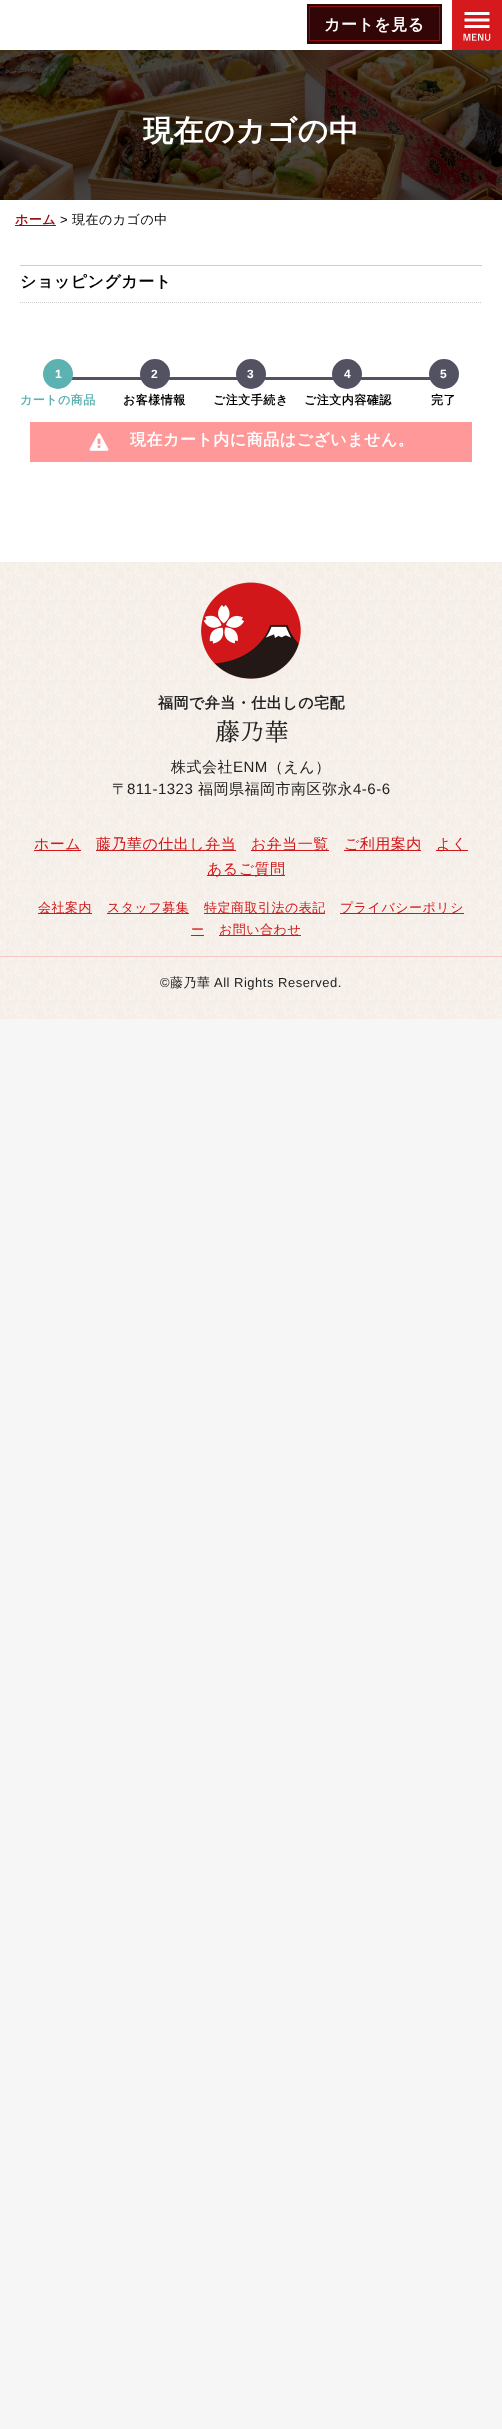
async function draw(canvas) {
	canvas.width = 502;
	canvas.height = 2429;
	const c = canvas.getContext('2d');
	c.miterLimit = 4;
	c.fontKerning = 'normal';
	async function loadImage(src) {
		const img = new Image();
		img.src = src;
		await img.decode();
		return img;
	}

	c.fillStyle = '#f6f6f6';
	c.fillRect(0, 0, 502, 2429);
	c.fillStyle = '#fff';
	c.fillRect(0, 0, 502, 562);
	c.fillStyle = '#320506';
	c.fillRect(307, 4, 135, 40);
	c.strokeStyle = '#8a0f11';
	c.strokeRect(309.5, 6.5, 130, 34);
	c.letterSpacing = '0.5px';
	c.font = 'bold 16px WenQuanYi Zen Hei';
	c.fillStyle = '#fff';
	c.fillText('カートを見る', 324, 30);
	c.fillStyle = '#d5191c';
	c.fillRect(452, 0, 50, 50);
	c.drawImage(await loadImage('img1.png'), 463, 12, 28, 29);
	c.drawImage(await loadImage('img2.png'), 0, 50, 502, 150);
	c.font = 'bold 30px WenQuanYi Zen Hei';
	c.fillStyle = '#fff';
	c.fillText('現在のカゴの中', 143, 141);
	c.fillStyle = '#991113';
	c.fillRect(15, 225, 41, 1);
	c.font = 'bold 13px WenQuanYi Zen Hei';
	c.fillText('ホーム', 15, 224);
	c.font = '13px Liberation Sans';
	c.fillStyle = '#000';
	c.fillText('>', 60, 224);
	c.font = '500 13px WenQuanYi Zen Hei';
	c.fillText('現在のカゴの中', 72, 224);
	c.fillStyle = '#ccc';
	c.fillRect(20, 265, 462, 1);
	c.beginPath();
	c.moveTo(20, 302.5);
	c.lineTo(482, 302.5);
	c.strokeStyle = '#ccc';
	c.setLineDash([1, 1]);
	c.stroke();
	c.font = 'bold 16px WenQuanYi Zen Hei';
	c.fillStyle = '#000';
	c.fillText('ショッピングカート', 20, 287);
	c.fillStyle = '#525263';
	c.fillRect(71, 377, 71, 3);
	c.fillStyle = '#5cb1b1';
	c.beginPath();
	c.arc(58, 374, 15, 0, 2 * Math.PI);
	c.fill();
	c.font = 'bold 12px Liberation Sans';
	c.fillStyle = '#fff';
	c.fillText('1', 55, 378);
	c.font = 'bold 12px WenQuanYi Zen Hei';
	c.fillStyle = '#5cb1b1';
	c.fillText('カートの商品', 20, 404);
	c.fillStyle = '#525263';
	c.fillRect(168, 377, 70, 3);
	c.beginPath();
	c.arc(155, 374, 15, 0, 2 * Math.PI);
	c.fill();
	c.font = 'bold 12px Liberation Sans';
	c.fillStyle = '#fff';
	c.fillText('2', 151, 378);
	c.font = 'bold 12px WenQuanYi Zen Hei';
	c.fillStyle = '#000';
	c.fillText('お客様情報', 123, 404);
	c.fillStyle = '#525263';
	c.fillRect(264, 377, 70, 3);
	c.beginPath();
	c.arc(251, 374, 15, 0, 2 * Math.PI);
	c.fill();
	c.font = 'bold 12px Liberation Sans';
	c.fillStyle = '#fff';
	c.fillText('3', 247, 378);
	c.font = 'bold 12px WenQuanYi Zen Hei';
	c.fillStyle = '#000';
	c.fillText('ご注文手続き', 213, 404);
	c.fillStyle = '#525263';
	c.fillRect(360, 377, 71, 3);
	c.beginPath();
	c.arc(347, 374, 15, 0, 2 * Math.PI);
	c.fill();
	c.font = 'bold 12px Liberation Sans';
	c.fillStyle = '#fff';
	c.fillText('4', 344, 378);
	c.font = 'bold 12px WenQuanYi Zen Hei';
	c.fillStyle = '#000';
	c.fillText('ご注文内容確認', 304, 404);
	c.fillStyle = '#525263';
	c.beginPath();
	c.arc(444, 374, 15, 0, 2 * Math.PI);
	c.fill();
	c.font = 'bold 12px Liberation Sans';
	c.fillStyle = '#fff';
	c.fillText('5', 440, 378);
	c.font = 'bold 12px WenQuanYi Zen Hei';
	c.fillStyle = '#000';
	c.fillText('完了', 431, 404);
	c.fillStyle = '#f99';
	c.fillRect(30, 422, 442, 40);
	c.drawImage(await loadImage('img3.png'), 89, 433, 20, 18);
	c.font = 'bold 16px WenQuanYi Zen Hei';
	c.fillStyle = '#fff';
	c.fillText('現在カート内に商品はございません。', 130, 445);
	c.drawImage(await loadImage('img4.png'), 0, 562, 502, 457);
	c.fillStyle = '#f9c7c8';
	c.fillRect(0, 956, 502, 1);
	c.drawImage(await loadImage('img5.png'), 201, 582, 100, 97);
	c.font = 'bold 15px WenQuanYi Zen Hei';
	c.fillStyle = '#222';
	c.fillText('福岡で弁当・仕出しの宅配', 158, 708);
	c.drawImage(await loadImage('img6.png'), 215, 720, 73, 23);
	c.font = '500 15px WenQuanYi Zen Hei';
	c.fillText('株式会社', 171, 772);
	c.font = '15px Liberation Sans';
	c.fillText('ENM', 233, 772);
	c.font = '500 15px WenQuanYi Zen Hei';
	c.fillText('（えん）', 268, 772);
	c.fillText('〒', 112, 794);
	c.font = '15px Liberation Sans';
	c.fillText('811-1323', 127, 794);
	c.font = '500 15px WenQuanYi Zen Hei';
	c.fillText('福岡県福岡市南区弥永', 198, 794);
	c.font = '15px Liberation Sans';
	c.fillText('4-6-6', 353, 794);
	c.fillStyle = '#d11719';
	c.fillRect(34, 850, 47, 1);
	c.font = '500 15px WenQuanYi Zen Hei';
	c.fillText('ホーム', 34, 849);
	c.fillRect(96, 850, 140, 1);
	c.fillText('藤乃華の仕出し弁当', 96, 849);
	c.fillRect(251, 850, 78, 1);
	c.fillText('お弁当一覧', 251, 849);
	c.fillRect(344, 850, 77, 1);
	c.fillText('ご利用案内', 344, 849);
	c.fillRect(436, 850, 32, 1);
	c.fillText('よく', 436, 849);
	c.fillRect(207, 875, 78, 1);
	c.fillText('あるご質問', 207, 874);
	c.fillRect(38, 913, 54, 1);
	c.font = '500 13px WenQuanYi Zen Hei';
	c.fillText('会社案内', 38, 912);
	c.fillRect(107, 913, 82, 1);
	c.fillText('スタッフ募集', 107, 912);
	c.fillRect(204, 913, 121, 1);
	c.fillText('特定商取引法の表記', 204, 912);
	c.fillRect(340, 913, 124, 1);
	c.fillText('プライバシーポリシ', 340, 912);
	c.fillText('ー', 191, 934);
	c.fillRect(191, 935, 13, 1);
	c.fillRect(219, 935, 82, 1);
	c.fillText('お問い合わせ', 219, 934);
	c.font = '13px Liberation Sans';
	c.fillStyle = '#222';
	c.fillText('©', 160, 987);
	c.font = '500 13px WenQuanYi Zen Hei';
	c.fillText('藤乃華', 170, 987);
	c.font = '13px Liberation Sans';
	c.fillText('All Rights Reserved.', 214, 987);
}

draw(document.querySelector('canvas'));
